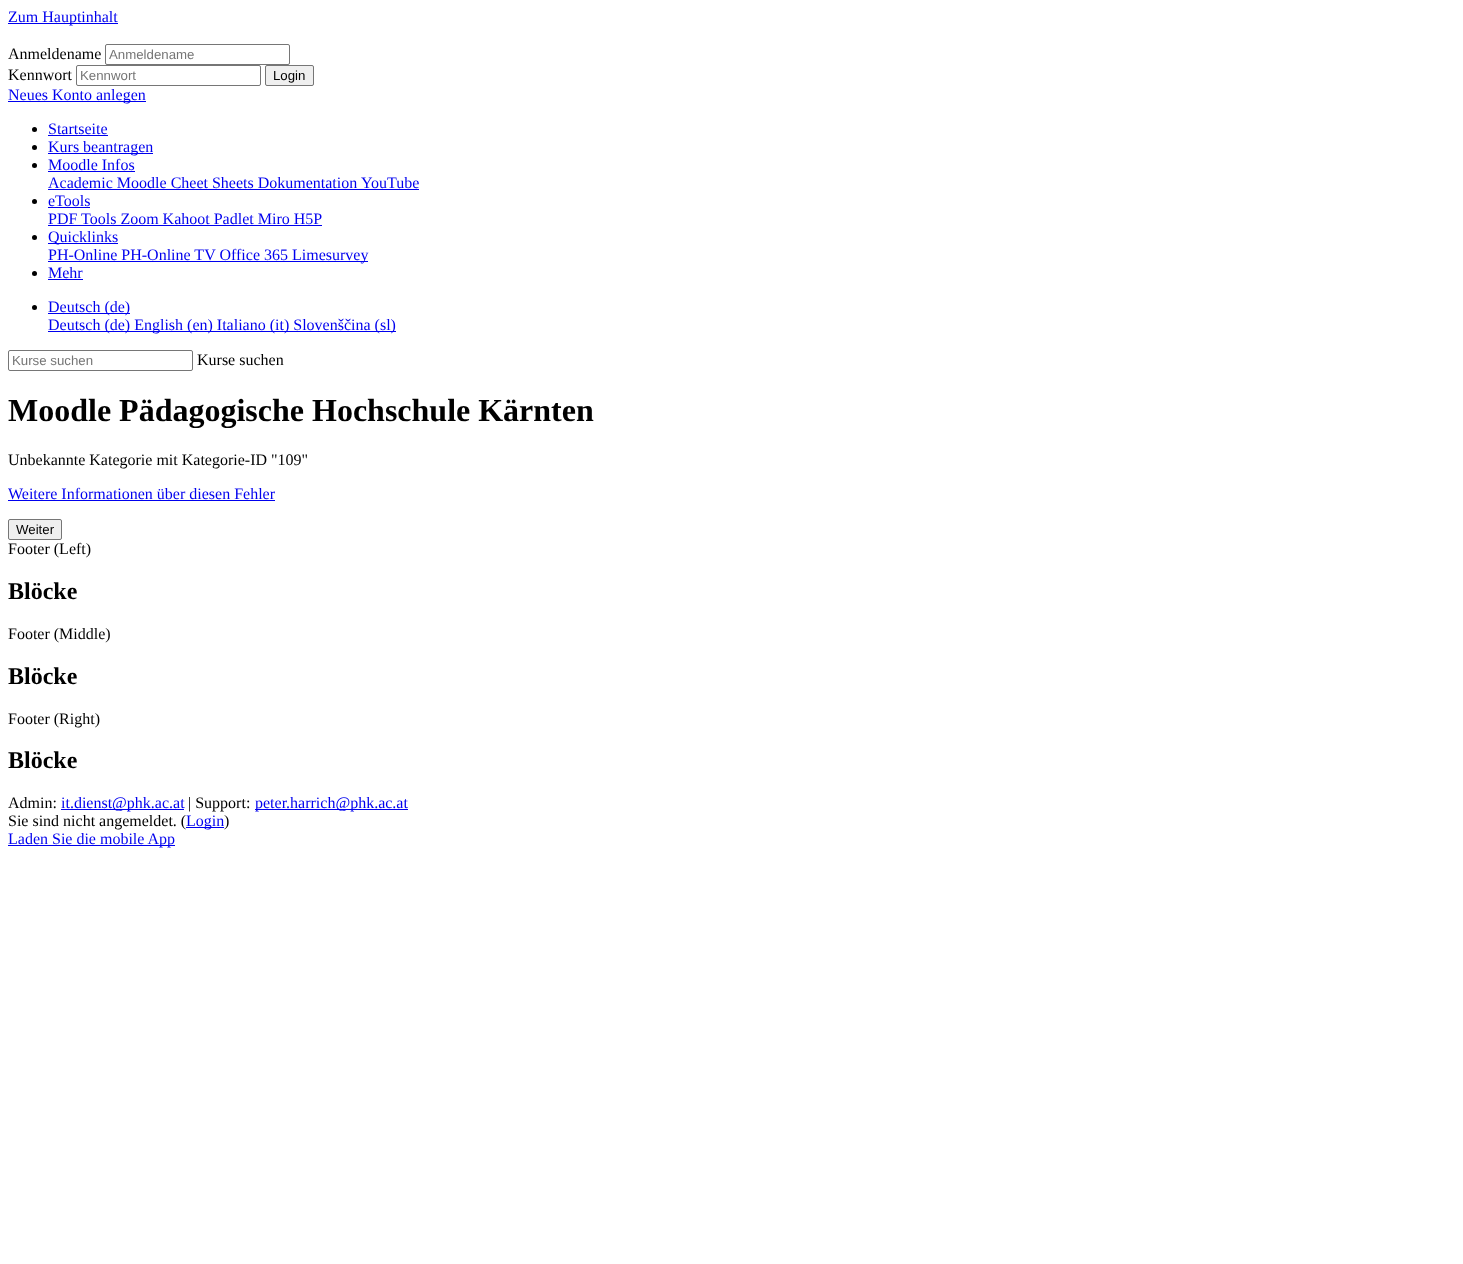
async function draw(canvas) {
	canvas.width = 1463;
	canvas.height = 1264;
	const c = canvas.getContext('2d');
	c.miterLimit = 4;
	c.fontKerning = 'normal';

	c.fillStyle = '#fff';
	c.fillRect(0, 0, 1463, 1264);
	c.fillStyle = '#00e';
	c.fillRect(8, 23, 110, 1);
	c.font = '16px Liberation Serif';
	c.fillText('Zum Hauptinhalt', 8, 22);
	c.fillStyle = '#000';
	c.fillText('Anmeldename', 8, 59);
	c.beginPath();
	c.roundRect(105.5, 44.5, 184, 20, 1.5);
	c.strokeStyle = '#767676';
	c.stroke();
	c.font = '13.25px Liberation Sans';
	c.fillStyle = '#757575';
	c.fillText('Anmeldename', 109, 59);
	c.font = '16px Liberation Serif';
	c.fillStyle = '#000';
	c.fillText('Kennwort', 8, 80);
	c.beginPath();
	c.roundRect(76.5, 65.5, 184, 20, 1.5);
	c.stroke();
	c.font = '13.25px Liberation Sans';
	c.fillStyle = '#757575';
	c.fillText('Kennwort', 80, 80);
	c.fillStyle = '#efefef';
	c.beginPath();
	c.roundRect(265.5, 65.5, 48, 20, 1.5);
	c.fill();
	c.stroke();
	c.fillStyle = '#000';
	c.fillText('Login', 273, 80);
	c.fillStyle = '#00e';
	c.fillRect(8, 101, 138, 1);
	c.font = '16px Liberation Serif';
	c.fillText('Neues Konto anlegen', 8, 100);
	c.fillStyle = '#000';
	c.beginPath();
	c.arc(34.5, 129.5, 2.5, 0, 2 * Math.PI);
	c.fill();
	c.fillStyle = '#00e';
	c.fillText('Startseite', 48, 134);
	c.fillRect(48, 135, 60, 1);
	c.fillStyle = '#000';
	c.beginPath();
	c.arc(34.5, 147.5, 2.5, 0, 2 * Math.PI);
	c.fill();
	c.fillStyle = '#00e';
	c.fillRect(48, 153, 105, 1);
	c.fillText('Kurs beantragen', 48, 152);
	c.fillStyle = '#000';
	c.beginPath();
	c.arc(34.5, 165.5, 2.5, 0, 2 * Math.PI);
	c.fill();
	c.fillStyle = '#00e';
	c.fillText('Moodle Infos', 48, 170);
	c.fillRect(48, 171, 87, 1);
	c.fillText('Academic Moodle Cheet Sheets Dokumentation', 48, 188);
	c.fillRect(48, 189, 371, 1);
	c.fillText('YouTube', 361, 188);
	c.fillStyle = '#000';
	c.beginPath();
	c.arc(34.5, 201.5, 2.5, 0, 2 * Math.PI);
	c.fill();
	c.fillStyle = '#00e';
	c.fillText('eTools', 48, 206);
	c.fillRect(48, 207, 42, 1);
	c.fillText('PDF Tools Zoom Kahoot Padlet Miro H5P', 48, 224);
	c.fillRect(48, 225, 274, 1);
	c.fillStyle = '#000';
	c.beginPath();
	c.arc(34.5, 237.5, 2.5, 0, 2 * Math.PI);
	c.fill();
	c.fillStyle = '#00e';
	c.fillRect(48, 243, 70, 1);
	c.fillText('Quicklinks', 48, 242);
	c.fillRect(48, 261, 320, 1);
	c.fillText('PH-Online PH-Online TV Office 365 Limesurvey', 48, 260);
	c.fillStyle = '#000';
	c.beginPath();
	c.arc(34.5, 273.5, 2.5, 0, 2 * Math.PI);
	c.fill();
	c.fillStyle = '#00e';
	c.fillText('Mehr', 48, 278);
	c.fillRect(48, 279, 35, 1);
	c.fillStyle = '#000';
	c.beginPath();
	c.arc(34.5, 307.5, 2.5, 0, 2 * Math.PI);
	c.fill();
	c.fillStyle = '#00e';
	c.fillRect(48, 313, 82, 1);
	c.fillText('Deutsch (de)', 48, 312);
	c.fillRect(48, 331, 348, 1);
	c.fillText('Deutsch (de) English (en) Italiano (it) Slovenščina (sl)', 48, 330);
	c.beginPath();
	c.roundRect(8.5, 350.5, 184, 20, 1.5);
	c.stroke();
	c.font = '13.25px Liberation Sans';
	c.fillStyle = '#757575';
	c.fillText('Kurse suchen', 12, 365);
	c.font = '16px Liberation Serif';
	c.fillStyle = '#000';
	c.fillText('Kurse suchen', 197, 365);
	c.font = 'bold 32px Liberation Serif';
	c.fillText('Moodle Pädagogische Hochschule Kärnten', 8, 421);
	c.font = '16px Liberation Serif';
	c.fillText('Unbekannte Kategorie mit Kategorie-ID "109"', 8, 465);
	c.fillStyle = '#00e';
	c.fillText('Weitere Informationen über diesen Fehler', 8, 499);
	c.fillRect(8, 500, 267, 1);
	c.fillStyle = '#efefef';
	c.beginPath();
	c.roundRect(8.5, 519.5, 53, 20, 1.5);
	c.fill();
	c.stroke();
	c.font = '13.25px Liberation Sans';
	c.fillStyle = '#000';
	c.fillText('Weiter', 16, 534);
	c.font = '16px Liberation Serif';
	c.fillText('Footer (Left)', 8, 554);
	c.font = 'bold 24px Liberation Serif';
	c.fillText('Blöcke', 8, 599);
	c.font = '16px Liberation Serif';
	c.fillText('Footer (Middle)', 8, 639);
	c.font = 'bold 24px Liberation Serif';
	c.fillText('Blöcke', 8, 684);
	c.font = '16px Liberation Serif';
	c.fillText('Footer (Right)', 8, 724);
	c.font = 'bold 24px Liberation Serif';
	c.fillText('Blöcke', 8, 768);
	c.font = '16px Liberation Serif';
	c.fillText('Admin:', 8, 808);
	c.fillStyle = '#00e';
	c.fillRect(61, 809, 123, 1);
	c.fillText('it.dienst@phk.ac.at', 61, 808);
	c.fillStyle = '#000';
	c.fillText('| Support:', 188, 808);
	c.fillStyle = '#00e';
	c.fillRect(255, 809, 153, 1);
	c.fillText('peter.harrich@phk.ac.at', 255, 808);
	c.fillStyle = '#000';
	c.fillText('Sie sind nicht angemeldet. (', 8, 826);
	c.fillStyle = '#00e';
	c.fillRect(186, 827, 38, 1);
	c.fillText('Login', 186, 826);
	c.fillStyle = '#000';
	c.fillText(')', 224, 826);
	c.fillStyle = '#00e';
	c.fillRect(8, 845, 167, 1);
	c.fillText('Laden Sie die mobile App', 8, 844);
}

draw(document.querySelector('canvas'));
